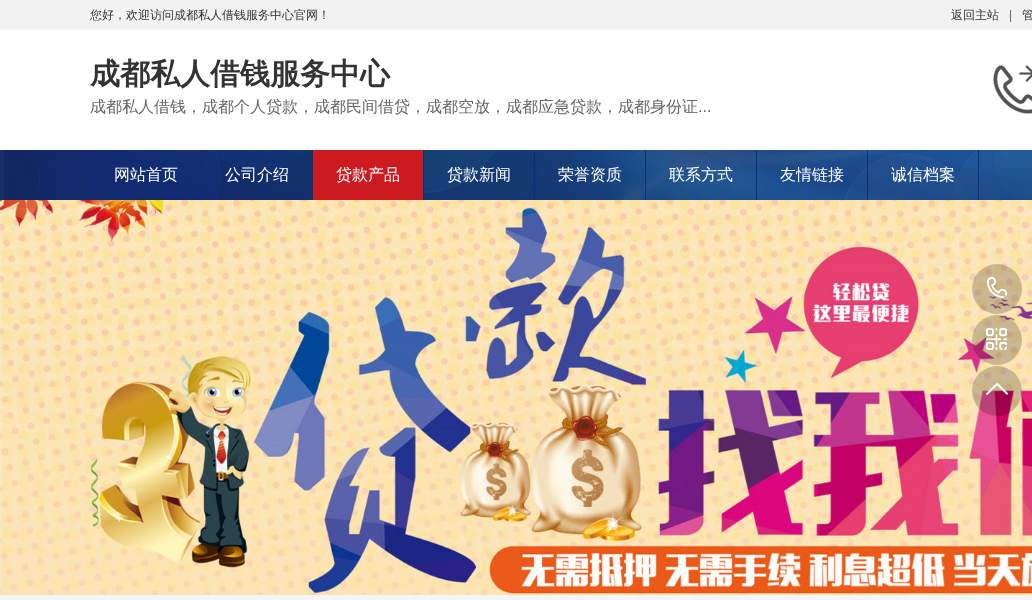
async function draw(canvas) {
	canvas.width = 1032;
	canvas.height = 600;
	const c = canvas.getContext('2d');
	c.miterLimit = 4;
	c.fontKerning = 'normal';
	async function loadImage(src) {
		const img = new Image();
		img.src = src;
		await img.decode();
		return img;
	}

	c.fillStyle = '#f5f5f5';
	c.fillRect(0, 0, 1032, 600);
	c.fillStyle = '#f2f2f2';
	c.fillRect(0, 0, 1032, 30);
	c.font = '500 12px WenQuanYi Zen Hei';
	c.fillStyle = '#333';
	c.fillText('您好，欢迎访问成都私人借钱服务中心官网！', 90, 19);
	c.fillText('返回主站', 951, 19);
	c.fillStyle = '#666';
	c.fillRect(1010, 10, 1, 12);
	c.fillStyle = '#333';
	c.fillText('管', 1022, 19);
	c.fillStyle = '#fff';
	c.fillRect(0, 30, 1032, 120);
	c.font = 'bold 30px WenQuanYi Zen Hei';
	c.fillStyle = '#333';
	c.fillText('成都私人借钱服务中心', 90, 84);
	c.font = '500 16px WenQuanYi Zen Hei';
	c.fillStyle = '#666';
	c.fillText('成都私人借钱，成都个人贷款，成都民间借贷，成都空放，成都应急贷款，成都身份证', 90, 112);
	c.font = '16px Liberation Sans';
	c.fillText('...', 698, 112);
	c.drawImage(await loadImage('img1.png'), 993, 65, 39, 49);
	c.drawImage(await loadImage('img2.png'), 0, 150, 1032, 50);
	c.fillStyle = '#0b2d7e';
	c.fillRect(201, 150, 1, 50);
	c.fillRect(90, 150, 1, 50);
	c.font = '500 16px WenQuanYi Zen Hei';
	c.fillStyle = '#fff';
	c.fillText('网站首页', 114, 180);
	c.fillStyle = '#0b2d7e';
	c.fillRect(312, 150, 1, 50);
	c.fillStyle = '#fff';
	c.fillText('公司介绍', 225, 180);
	c.fillStyle = '#0b2d7e';
	c.fillRect(423, 150, 1, 50);
	c.fillStyle = '#cb1a20';
	c.fillRect(313, 150, 110, 50);
	c.fillStyle = '#fff';
	c.fillText('贷款产品', 336, 180);
	c.fillStyle = '#0b2d7e';
	c.fillRect(534, 150, 1, 50);
	c.fillStyle = '#fff';
	c.fillText('贷款新闻', 447, 180);
	c.fillStyle = '#0b2d7e';
	c.fillRect(645, 150, 1, 50);
	c.fillStyle = '#fff';
	c.fillText('荣誉资质', 558, 180);
	c.fillStyle = '#0b2d7e';
	c.fillRect(756, 150, 1, 50);
	c.fillStyle = '#fff';
	c.fillText('联系方式', 669, 180);
	c.fillStyle = '#0b2d7e';
	c.fillRect(867, 150, 1, 50);
	c.fillStyle = '#fff';
	c.fillText('友情链接', 780, 180);
	c.fillStyle = '#0b2d7e';
	c.fillRect(978, 150, 1, 50);
	c.fillStyle = '#fff';
	c.fillText('诚信档案', 891, 180);
	c.drawImage(await loadImage('img3.png'), 0, 200, 1032, 395);
	c.drawImage(await loadImage('img4.png'), 972, 264, 50, 50);
	c.drawImage(await loadImage('img5.png'), 987, 277, 20, 21);
	c.drawImage(await loadImage('img6.png'), 972, 315, 50, 50);
	c.drawImage(await loadImage('img7.png'), 986, 328, 21, 22);
	c.drawImage(await loadImage('img8.png'), 972, 366, 50, 50);
	c.drawImage(await loadImage('img9.png'), 986, 383, 22, 12);
}

draw(document.querySelector('canvas'));
